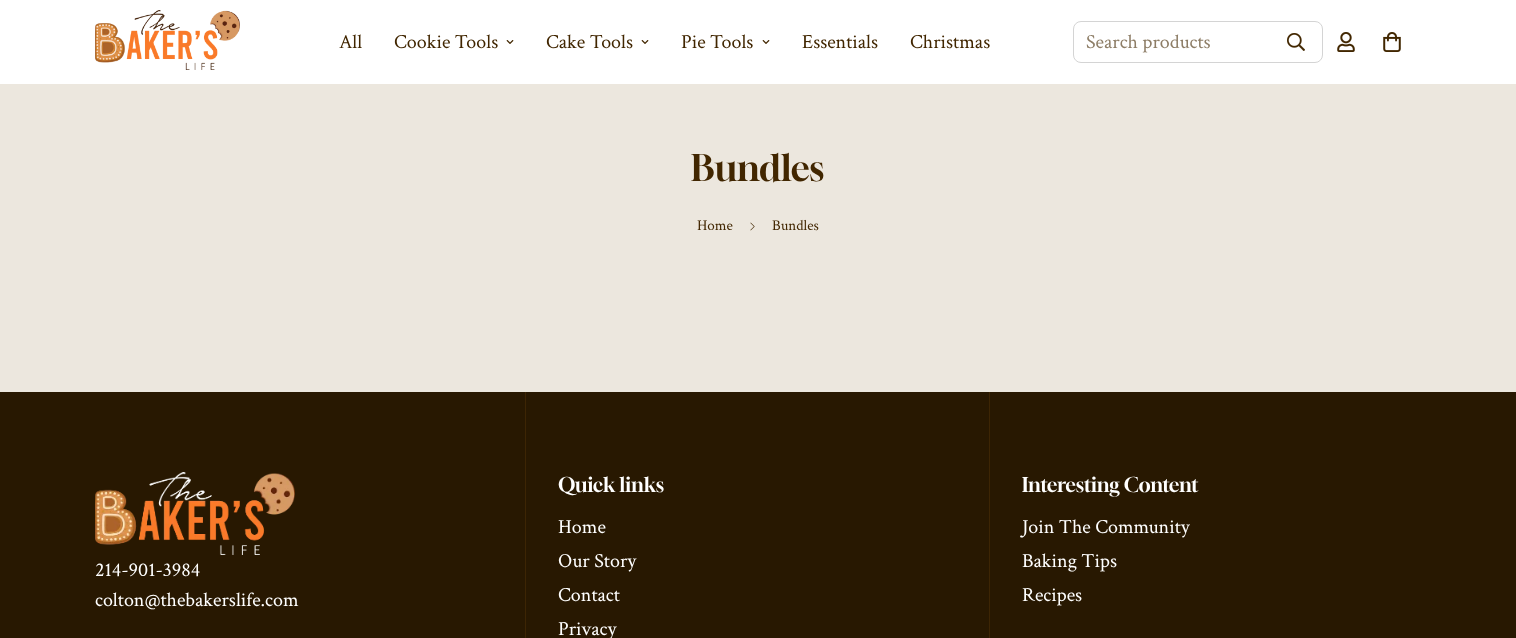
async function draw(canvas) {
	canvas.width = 1516;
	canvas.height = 638;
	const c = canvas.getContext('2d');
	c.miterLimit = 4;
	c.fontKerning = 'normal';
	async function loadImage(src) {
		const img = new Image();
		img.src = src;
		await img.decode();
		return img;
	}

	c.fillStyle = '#ece7de';
	c.fillRect(0, 0, 1516, 638);
	c.fillStyle = '#fff';
	c.fillRect(0, 0, 1516, 84);
	c.drawImage(await loadImage('img1.png'), 95, 10, 145, 60);
	c.font = '20px Crimson Text';
	c.fillStyle = '#412600';
	c.fillText('All', 339, 48);
	c.fillText('Cookie Tools', 394, 48);
	c.drawImage(await loadImage('img2.png'), 506, 40, 8, 4);
	c.fillText('Cake Tools', 546, 48);
	c.drawImage(await loadImage('img2.png'), 641, 40, 8, 4);
	c.fillText('Pie Tools', 681, 48);
	c.drawImage(await loadImage('img2.png'), 762, 40, 8, 4);
	c.fillText('Essentials', 802, 48);
	c.fillText('Christmas', 910, 48);
	c.beginPath();
	c.roundRect(1073.5, 21.5, 249, 41, 7.5);
	c.strokeStyle = '#d4d4d4';
	c.stroke();
	c.fillStyle = '#8d7d66';
	c.fillText('Search products', 1086, 48);
	c.drawImage(await loadImage('img3.png'), 1287, 33, 18, 18);
	c.drawImage(await loadImage('img4.png'), 1337, 32, 18, 20);
	c.drawImage(await loadImage('img5.png'), 1383, 32, 18, 20);
	c.font = '36px Gloock';
	c.fillStyle = '#412600';
	c.fillText('Bundles', 691, 181);
	c.font = '15px Crimson Text';
	c.fillText('Home', 697, 230);
	c.drawImage(await loadImage('img6.png'), 750, 222, 5, 9);
	c.fillText('Bundles', 772, 230);
	c.fillStyle = '#281801';
	c.fillRect(0, 392, 1516, 246);
	c.fillStyle = '#3d2504';
	c.fillRect(525, 392, 1, 246);
	c.drawImage(await loadImage('img7.png'), 95, 472, 200, 83);
	c.font = '20px Crimson Text';
	c.fillStyle = '#fff';
	c.fillText('214-901-3984', 95, 576);
	c.fillText('colton@thebakerslife.com', 95, 606);
	c.fillStyle = '#3d2504';
	c.fillRect(989, 392, 1, 246);
	c.font = '20px Gloock';
	c.fillStyle = '#fff';
	c.fillText('Quick links', 558, 492);
	c.font = '20px Crimson Text';
	for (const [text, x, y] of [
		['Home', 558, 533],
		['Our Story', 558, 567],
		['Contact', 558, 601],
		['Privacy', 558, 635],
	]) {
		c.fillText(text, x, y);
	}
	c.font = '20px Gloock';
	c.fillText('Interesting Content', 1022, 492);
	c.font = '20px Crimson Text';
	for (const [text, x, y] of [
		['Join The Community', 1022, 533],
		['Baking Tips', 1022, 567],
		['Recipes', 1022, 601],
	]) {
		c.fillText(text, x, y);
	}
}

draw(document.querySelector('canvas'));
